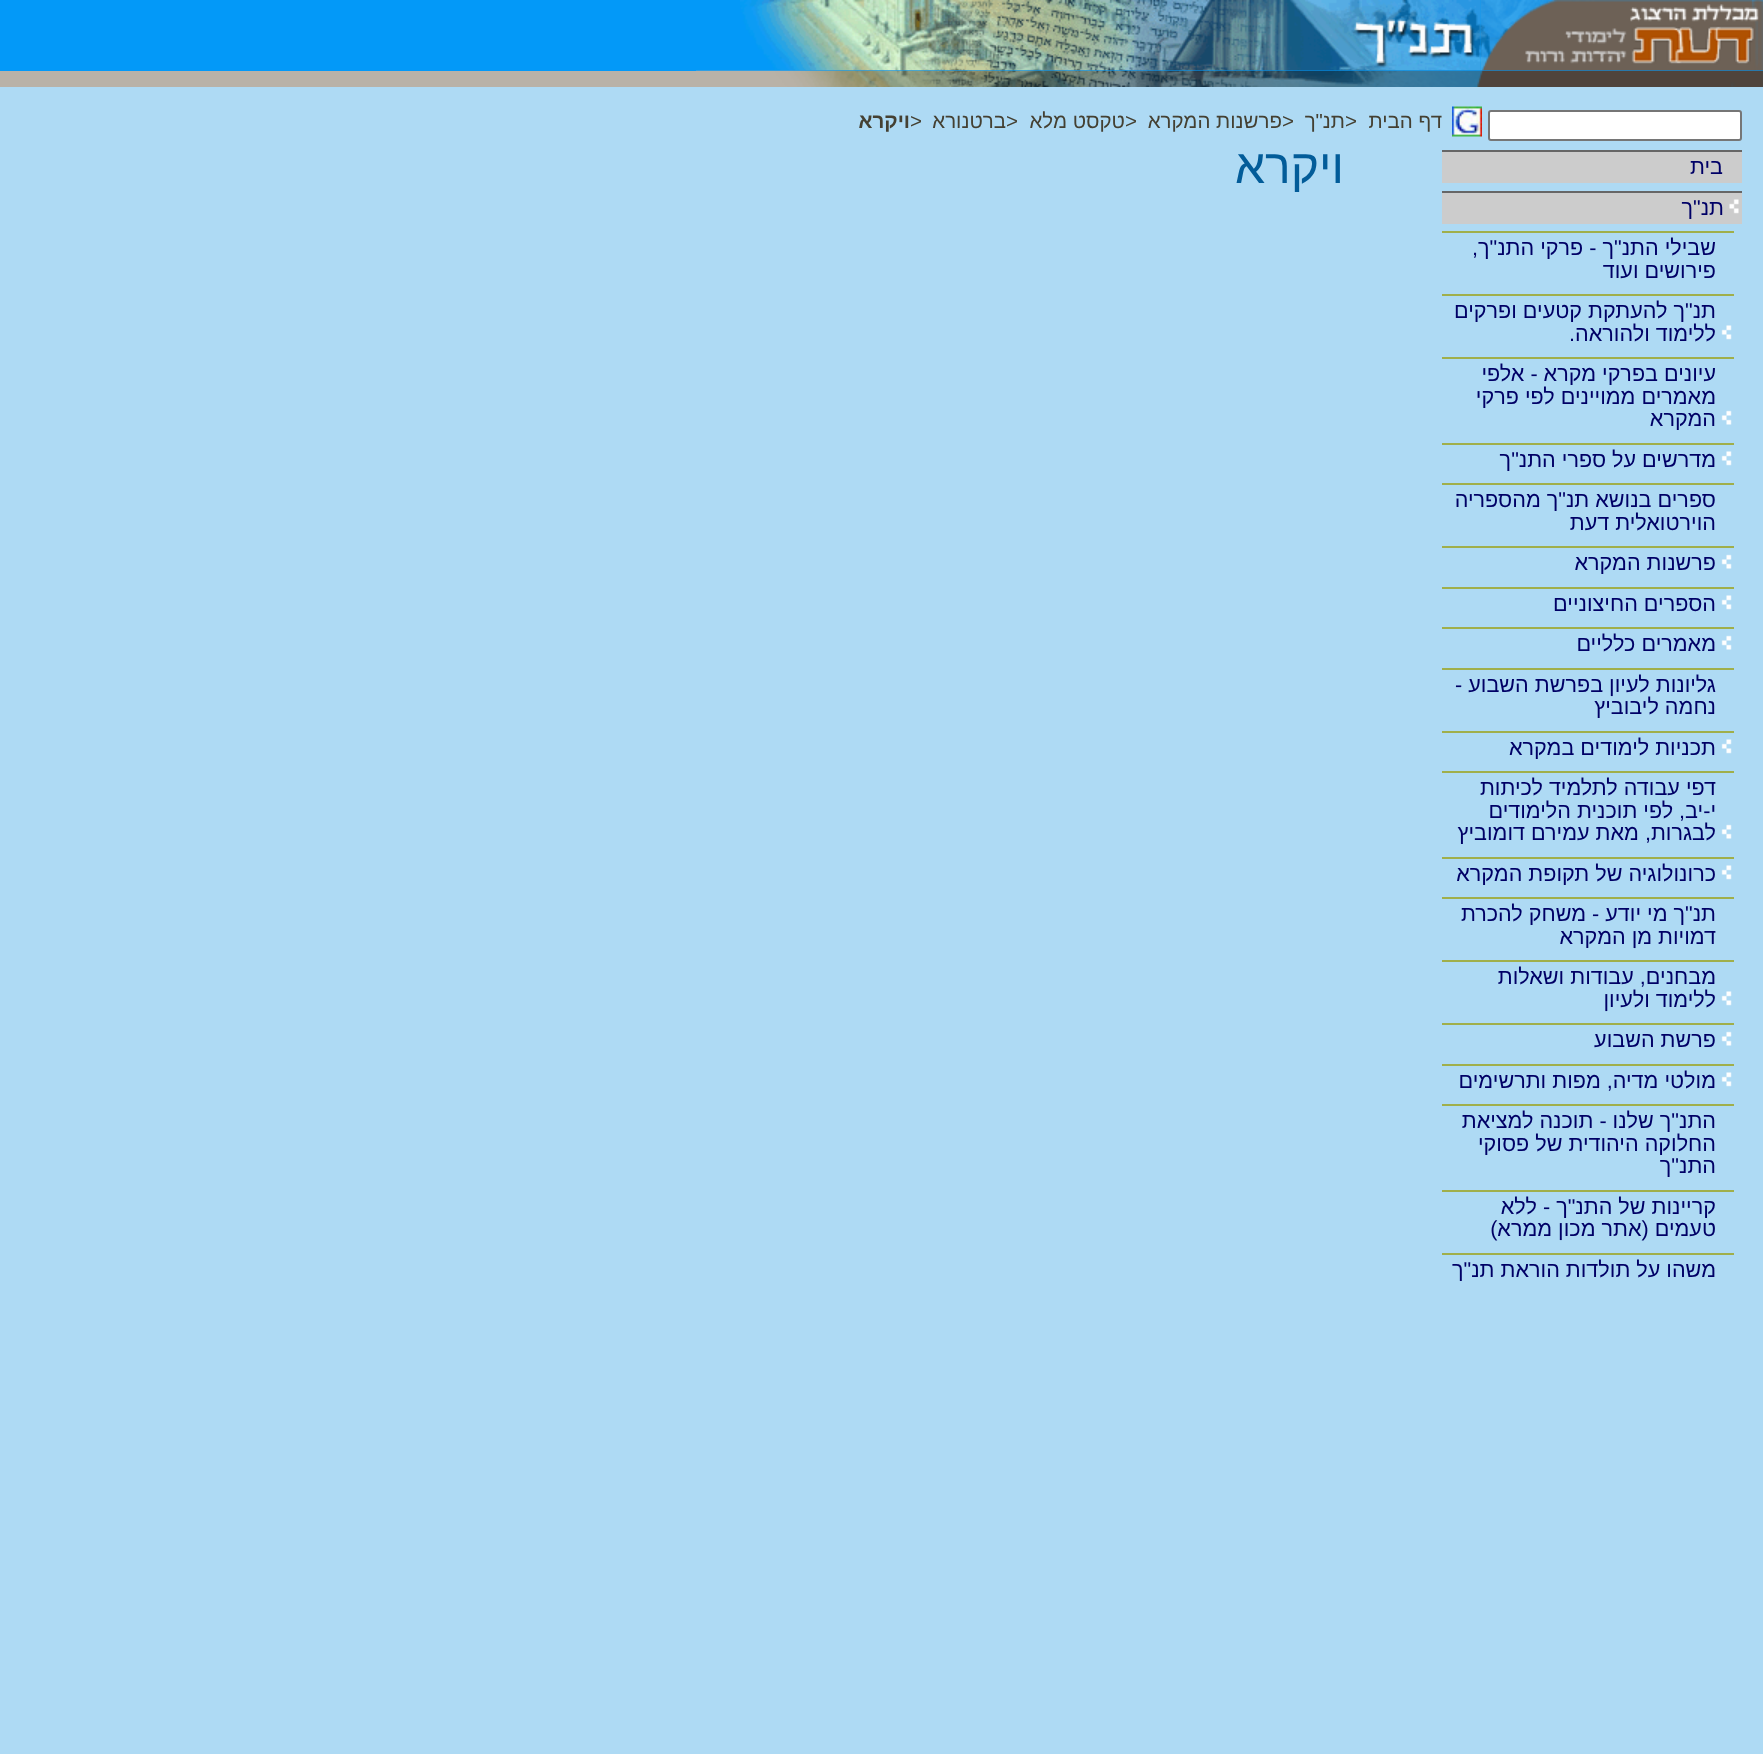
async function draw(canvas) {
	canvas.width = 1763;
	canvas.height = 1754;
	const c = canvas.getContext('2d');
	c.miterLimit = 4;
	c.fontKerning = 'normal';
	async function loadImage(src) {
		const img = new Image();
		img.src = src;
		await img.decode();
		return img;
	}

	c.fillStyle = '#aedaf4';
	c.fillRect(0, 0, 1763, 1754);
	c.fillStyle = '#0399f8';
	c.fillRect(0, 0, 1763, 71);
	c.drawImage(await loadImage('img1.png'), 1480, 0, 283, 71);
	c.drawImage(await loadImage('img2.png'), 740, 0, 741, 71);
	c.fillStyle = '#b9b2a8';
	c.fillRect(0, 71, 696, 16);
	c.drawImage(await loadImage('img3.png'), 696, 70, 1067, 17);
	c.direction = 'rtl';
	c.font = '20.5px Liberation Sans';
	c.fillStyle = '#444032';
	c.fillText('דף הבית', 1442, 128);
	c.direction = 'ltr';
	c.fillText('>', 1345, 128);
	c.direction = 'rtl';
	c.fillText('תנ"ך', 1345, 128);
	c.direction = 'ltr';
	c.fillText('>', 1282, 128);
	c.direction = 'rtl';
	c.fillText('פרשנות המקרא', 1282, 128);
	c.direction = 'ltr';
	c.fillText('>', 1125, 128);
	c.direction = 'rtl';
	c.fillText('טקסט מלא', 1125, 128);
	c.direction = 'ltr';
	c.fillText('>', 1006, 128);
	c.direction = 'rtl';
	c.fillText('ברטנורא', 1006, 128);
	c.direction = 'ltr';
	c.fillText('>', 910, 128);
	c.direction = 'rtl';
	c.font = 'bold 20.5px Liberation Sans';
	c.fillText('ויקרא', 910, 128);
	c.fillStyle = '#fff';
	c.beginPath();
	c.roundRect(1489, 111, 252, 29, 2);
	c.fill();
	c.strokeStyle = '#767676';
	c.lineWidth = 2;
	c.stroke();
	c.drawImage(await loadImage('img4.png'), 1452, 106, 30, 31);
	c.fillStyle = '#ccc';
	c.fillRect(1442, 152, 300, 31);
	c.fillStyle = '#666';
	c.fillRect(1442, 150, 300, 2);
	c.font = '21.6px Liberation Sans';
	c.fillStyle = '#006';
	c.fillText('בית', 1723, 174);
	c.fillStyle = '#ccc';
	c.fillRect(1442, 193, 300, 31);
	c.fillStyle = '#666';
	c.fillRect(1442, 191, 300, 2);
	c.drawImage(await loadImage('img5.png'), 1729, 199, 10, 15);
	c.fillStyle = '#006';
	c.fillText('תנ"ך', 1724, 215);
	c.fillStyle = '#a0af4b';
	c.fillRect(1442, 231, 292, 2);
	c.fillStyle = '#006';
	c.fillText('שבילי התנ"ך - פרקי התנ"ך,', 1716, 255);
	c.fillText('פירושים ועוד', 1716, 278);
	c.fillStyle = '#a0af4b';
	c.fillRect(1442, 294, 292, 2);
	c.drawImage(await loadImage('img6.png'), 1721, 325, 11, 15);
	c.fillStyle = '#006';
	c.fillText('תנ"ך להעתקת קטעים ופרקים', 1716, 318);
	c.fillText('ללימוד ולהוראה.', 1716, 341);
	c.fillStyle = '#a0af4b';
	c.fillRect(1442, 357, 292, 2);
	c.drawImage(await loadImage('img7.png'), 1721, 410, 11, 15);
	c.fillStyle = '#006';
	for (const [text, x, y] of [
		['עיונים בפרקי מקרא - אלפי', 1716, 381],
		['מאמרים ממויינים לפי פרקי', 1716, 404],
		['המקרא', 1716, 426],
	]) {
		c.fillText(text, x, y);
	}
	c.fillStyle = '#a0af4b';
	c.fillRect(1442, 443, 292, 2);
	c.drawImage(await loadImage('img6.png'), 1721, 451, 11, 15);
	c.fillStyle = '#006';
	c.fillText('מדרשים על ספרי התנ"ך', 1716, 467);
	c.fillStyle = '#a0af4b';
	c.fillRect(1442, 483, 292, 2);
	c.fillStyle = '#006';
	c.fillText('ספרים בנושא תנ"ך מהספריה', 1716, 507);
	c.fillText('הוירטואלית דעת', 1716, 530);
	c.fillStyle = '#a0af4b';
	c.fillRect(1442, 546, 292, 2);
	c.drawImage(await loadImage('img7.png'), 1721, 554, 11, 15);
	c.fillStyle = '#006';
	c.fillText('פרשנות המקרא', 1716, 570);
	c.fillStyle = '#a0af4b';
	c.fillRect(1442, 587, 292, 2);
	c.drawImage(await loadImage('img6.png'), 1721, 595, 11, 15);
	c.fillStyle = '#006';
	c.fillText('הספרים החיצוניים', 1716, 611);
	c.fillStyle = '#a0af4b';
	c.fillRect(1442, 627, 292, 2);
	c.drawImage(await loadImage('img7.png'), 1721, 635, 11, 15);
	c.fillStyle = '#006';
	c.fillText('מאמרים כלליים', 1716, 651);
	c.fillStyle = '#a0af4b';
	c.fillRect(1442, 668, 292, 2);
	c.fillStyle = '#006';
	c.fillText('גליונות לעיון בפרשת השבוע -', 1716, 692);
	c.fillText('נחמה ליבוביץ', 1716, 714);
	c.fillStyle = '#a0af4b';
	c.fillRect(1442, 731, 292, 2);
	c.drawImage(await loadImage('img6.png'), 1721, 739, 11, 15);
	c.fillStyle = '#006';
	c.fillText('תכניות לימודים במקרא', 1716, 755);
	c.fillStyle = '#a0af4b';
	c.fillRect(1442, 771, 292, 2);
	c.drawImage(await loadImage('img7.png'), 1721, 824, 11, 15);
	c.fillStyle = '#006';
	for (const [text, x, y] of [
		['דפי עבודה לתלמיד לכיתות', 1716, 795],
		['י-יב, לפי תוכנית הלימודים', 1716, 818],
		['לבגרות, מאת עמירם דומוביץ', 1716, 840],
	]) {
		c.fillText(text, x, y);
	}
	c.fillStyle = '#a0af4b';
	c.fillRect(1442, 857, 292, 2);
	c.drawImage(await loadImage('img6.png'), 1721, 865, 11, 15);
	c.fillStyle = '#006';
	c.fillText('כרונולוגיה של תקופת המקרא', 1716, 881);
	c.fillStyle = '#a0af4b';
	c.fillRect(1442, 897, 292, 2);
	c.fillStyle = '#006';
	c.fillText('תנ"ך מי יודע - משחק להכרת', 1716, 921);
	c.fillText('דמויות מן המקרא', 1716, 944);
	c.fillStyle = '#a0af4b';
	c.fillRect(1442, 960, 292, 2);
	c.drawImage(await loadImage('img6.png'), 1721, 991, 11, 15);
	c.fillStyle = '#006';
	c.fillText('מבחנים, עבודות ושאלות', 1716, 984);
	c.fillText('ללימוד ולעיון', 1716, 1007);
	c.fillStyle = '#a0af4b';
	c.fillRect(1442, 1023, 292, 2);
	c.drawImage(await loadImage('img7.png'), 1721, 1031, 11, 15);
	c.fillStyle = '#006';
	c.fillText('פרשת השבוע', 1716, 1047);
	c.fillStyle = '#a0af4b';
	c.fillRect(1442, 1064, 292, 2);
	c.drawImage(await loadImage('img6.png'), 1721, 1072, 11, 15);
	c.fillStyle = '#006';
	c.fillText('מולטי מדיה, מפות ותרשימים', 1716, 1088);
	c.fillStyle = '#a0af4b';
	c.fillRect(1442, 1104, 292, 2);
	c.fillStyle = '#006';
	for (const [text, x, y] of [
		['התנ"ך שלנו - תוכנה למציאת', 1716, 1128],
		['החלוקה היהודית של פסוקי', 1716, 1151],
		['התנ"ך', 1716, 1173],
	]) {
		c.fillText(text, x, y);
	}
	c.fillStyle = '#a0af4b';
	c.fillRect(1442, 1190, 292, 2);
	c.fillStyle = '#006';
	c.fillText('קריינות של התנ"ך - ללא', 1716, 1214);
	c.fillText('טעמים (אתר מכון ממרא)', 1716, 1236);
	c.fillStyle = '#a0af4b';
	c.fillRect(1442, 1253, 292, 2);
	c.fillStyle = '#006';
	c.fillText('משהו על תולדות הוראת תנ"ך', 1716, 1277);
	c.font = '48px Liberation Sans';
	c.fillStyle = '#025c99';
	c.fillText('ויקרא', 1344, 183);
}

draw(document.querySelector('canvas'));
